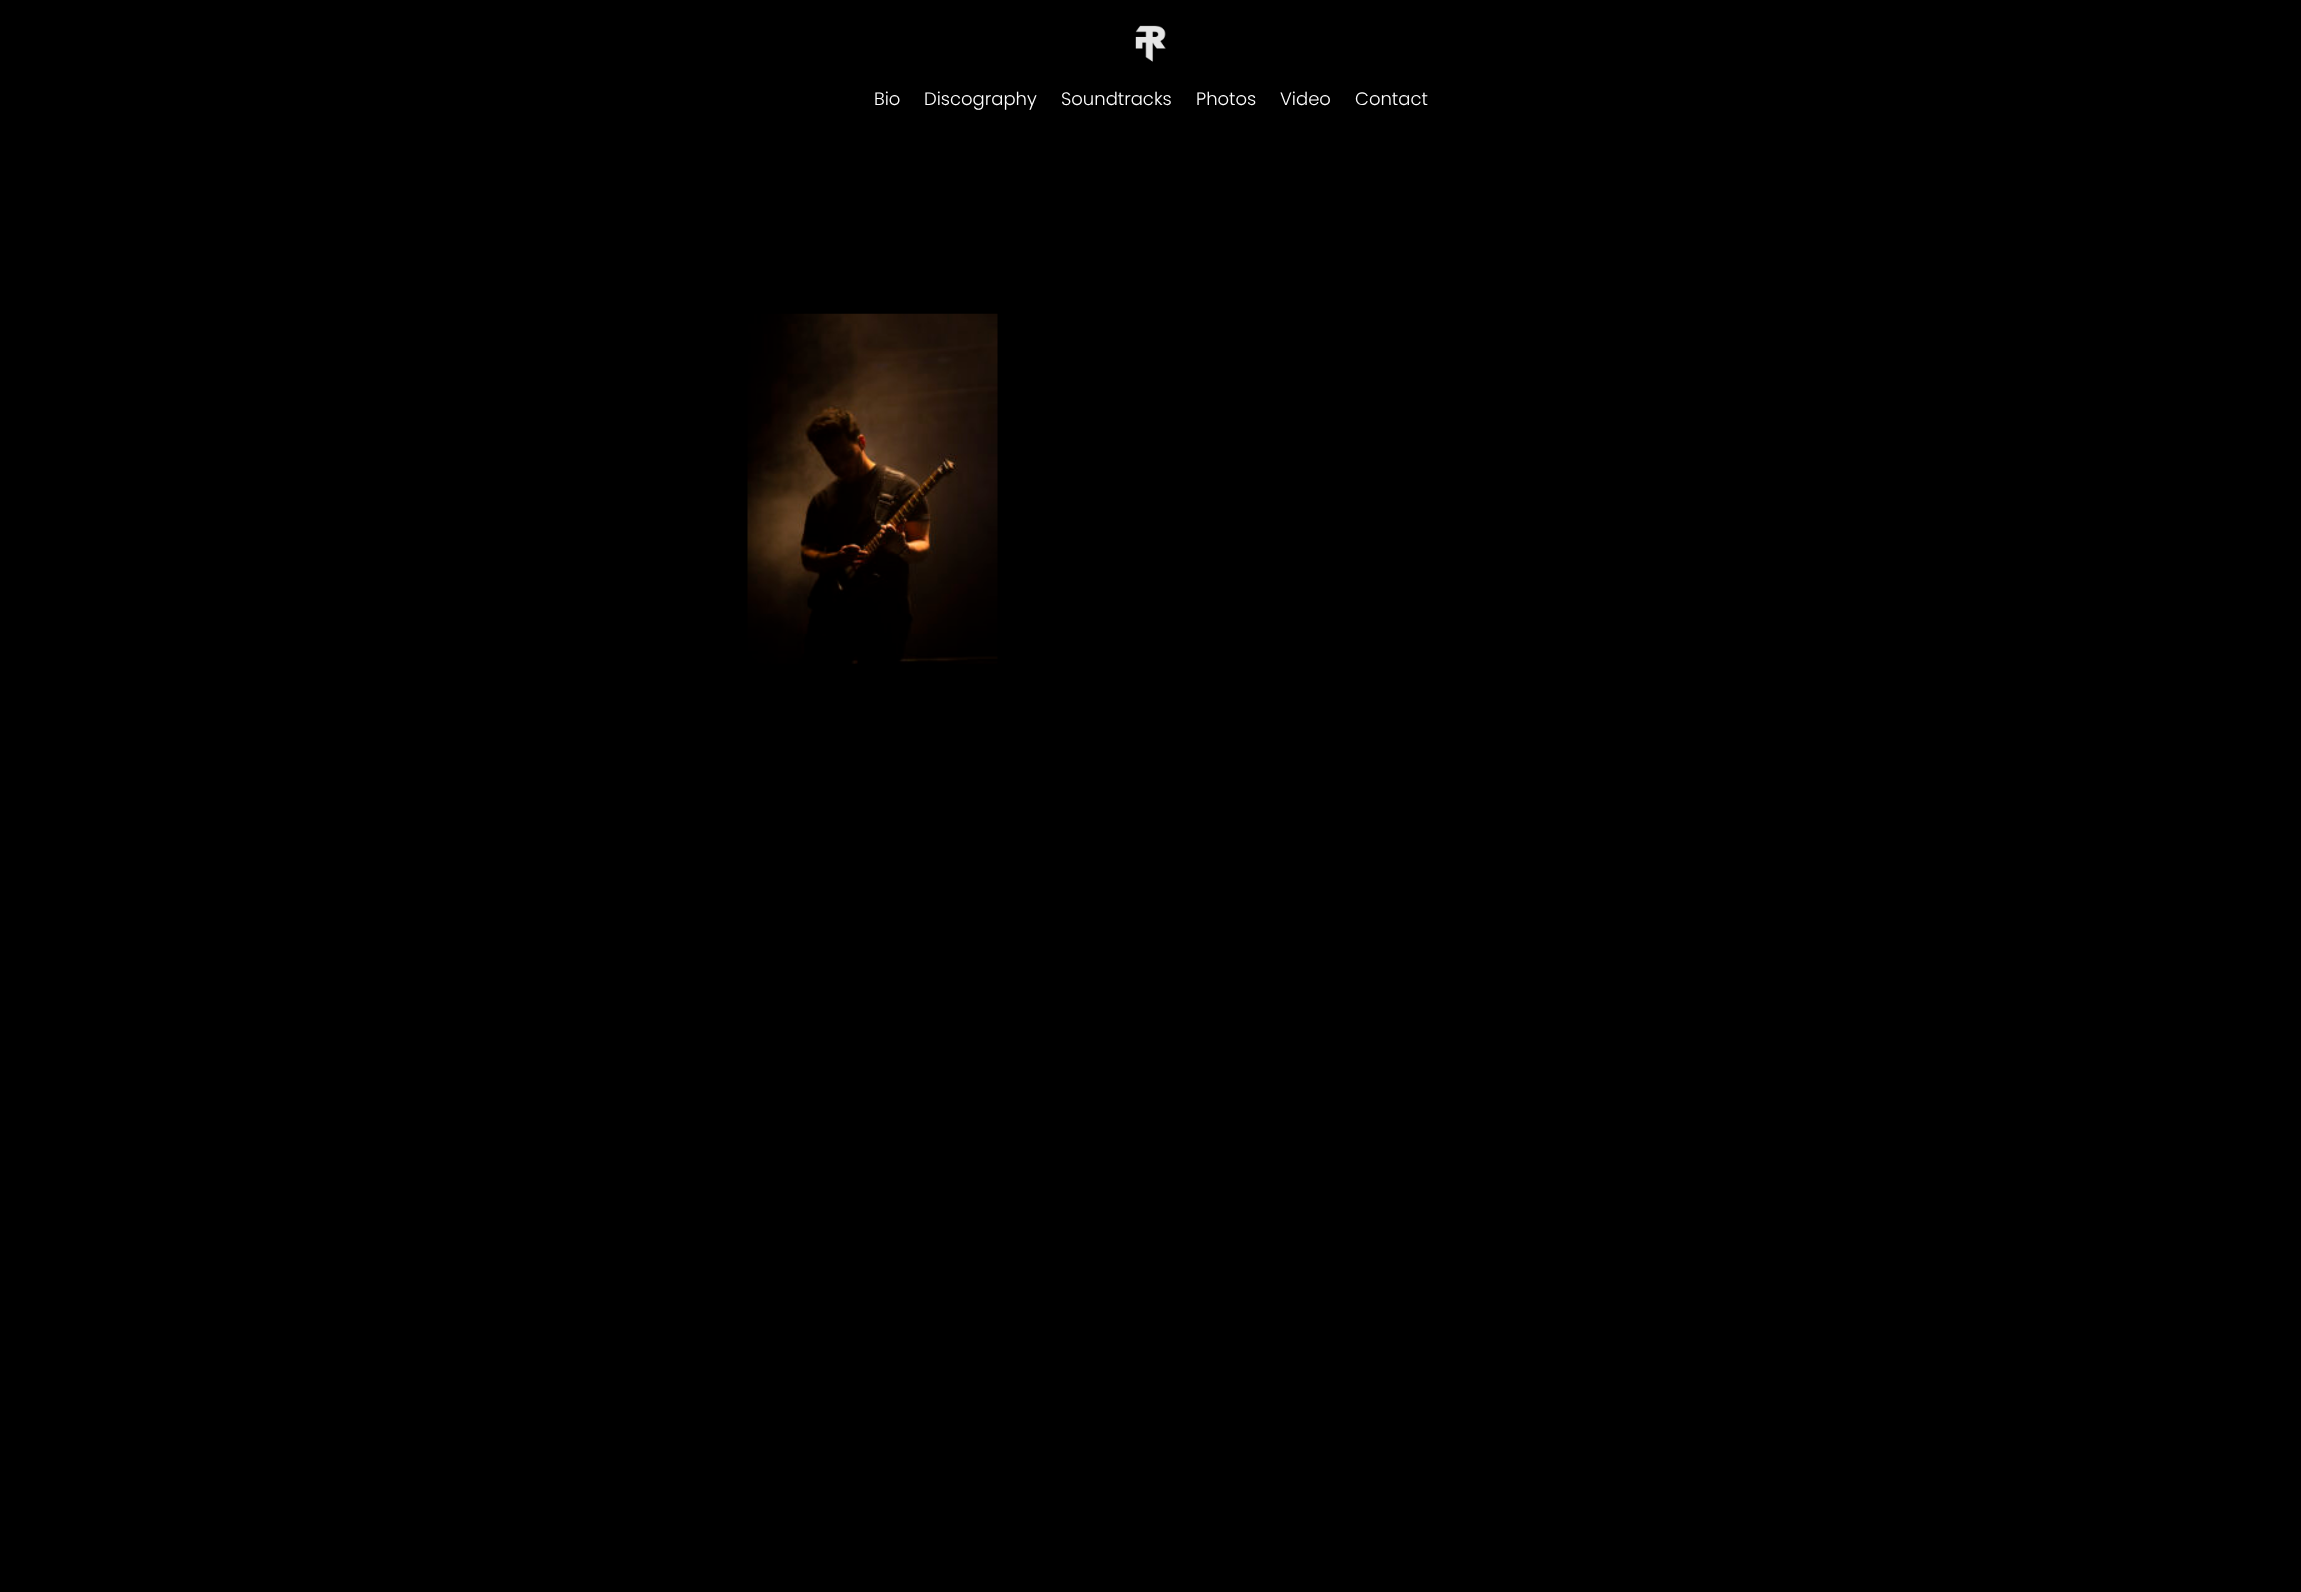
async function draw(canvas) {
	canvas.width = 2301;
	canvas.height = 1592;
	const c = canvas.getContext('2d');
	c.miterLimit = 4;
	c.fontKerning = 'normal';
	async function loadImage(src) {
		const img = new Image();
		img.src = src;
		await img.decode();
		return img;
	}

	c.fillStyle = '#000';
	c.fillRect(0, 0, 2301, 1592);
	c.drawImage(await loadImage('img1.png'), 1135, 25, 31, 37);
	c.font = '300 18px Poppins';
	c.fillStyle = '#fff';
	for (const [text, x, y] of [
		['Bio', 874, 105],
		['Discography', 924, 105],
		['Soundtracks', 1061, 105],
		['Photos', 1196, 105],
		['Video', 1280, 105],
		['Contact', 1355, 105],
	]) {
		c.fillText(text, x, y);
	}
	c.drawImage(await loadImage('img2.png'), 747, 313, 251, 351);
}

draw(document.querySelector('canvas'));
